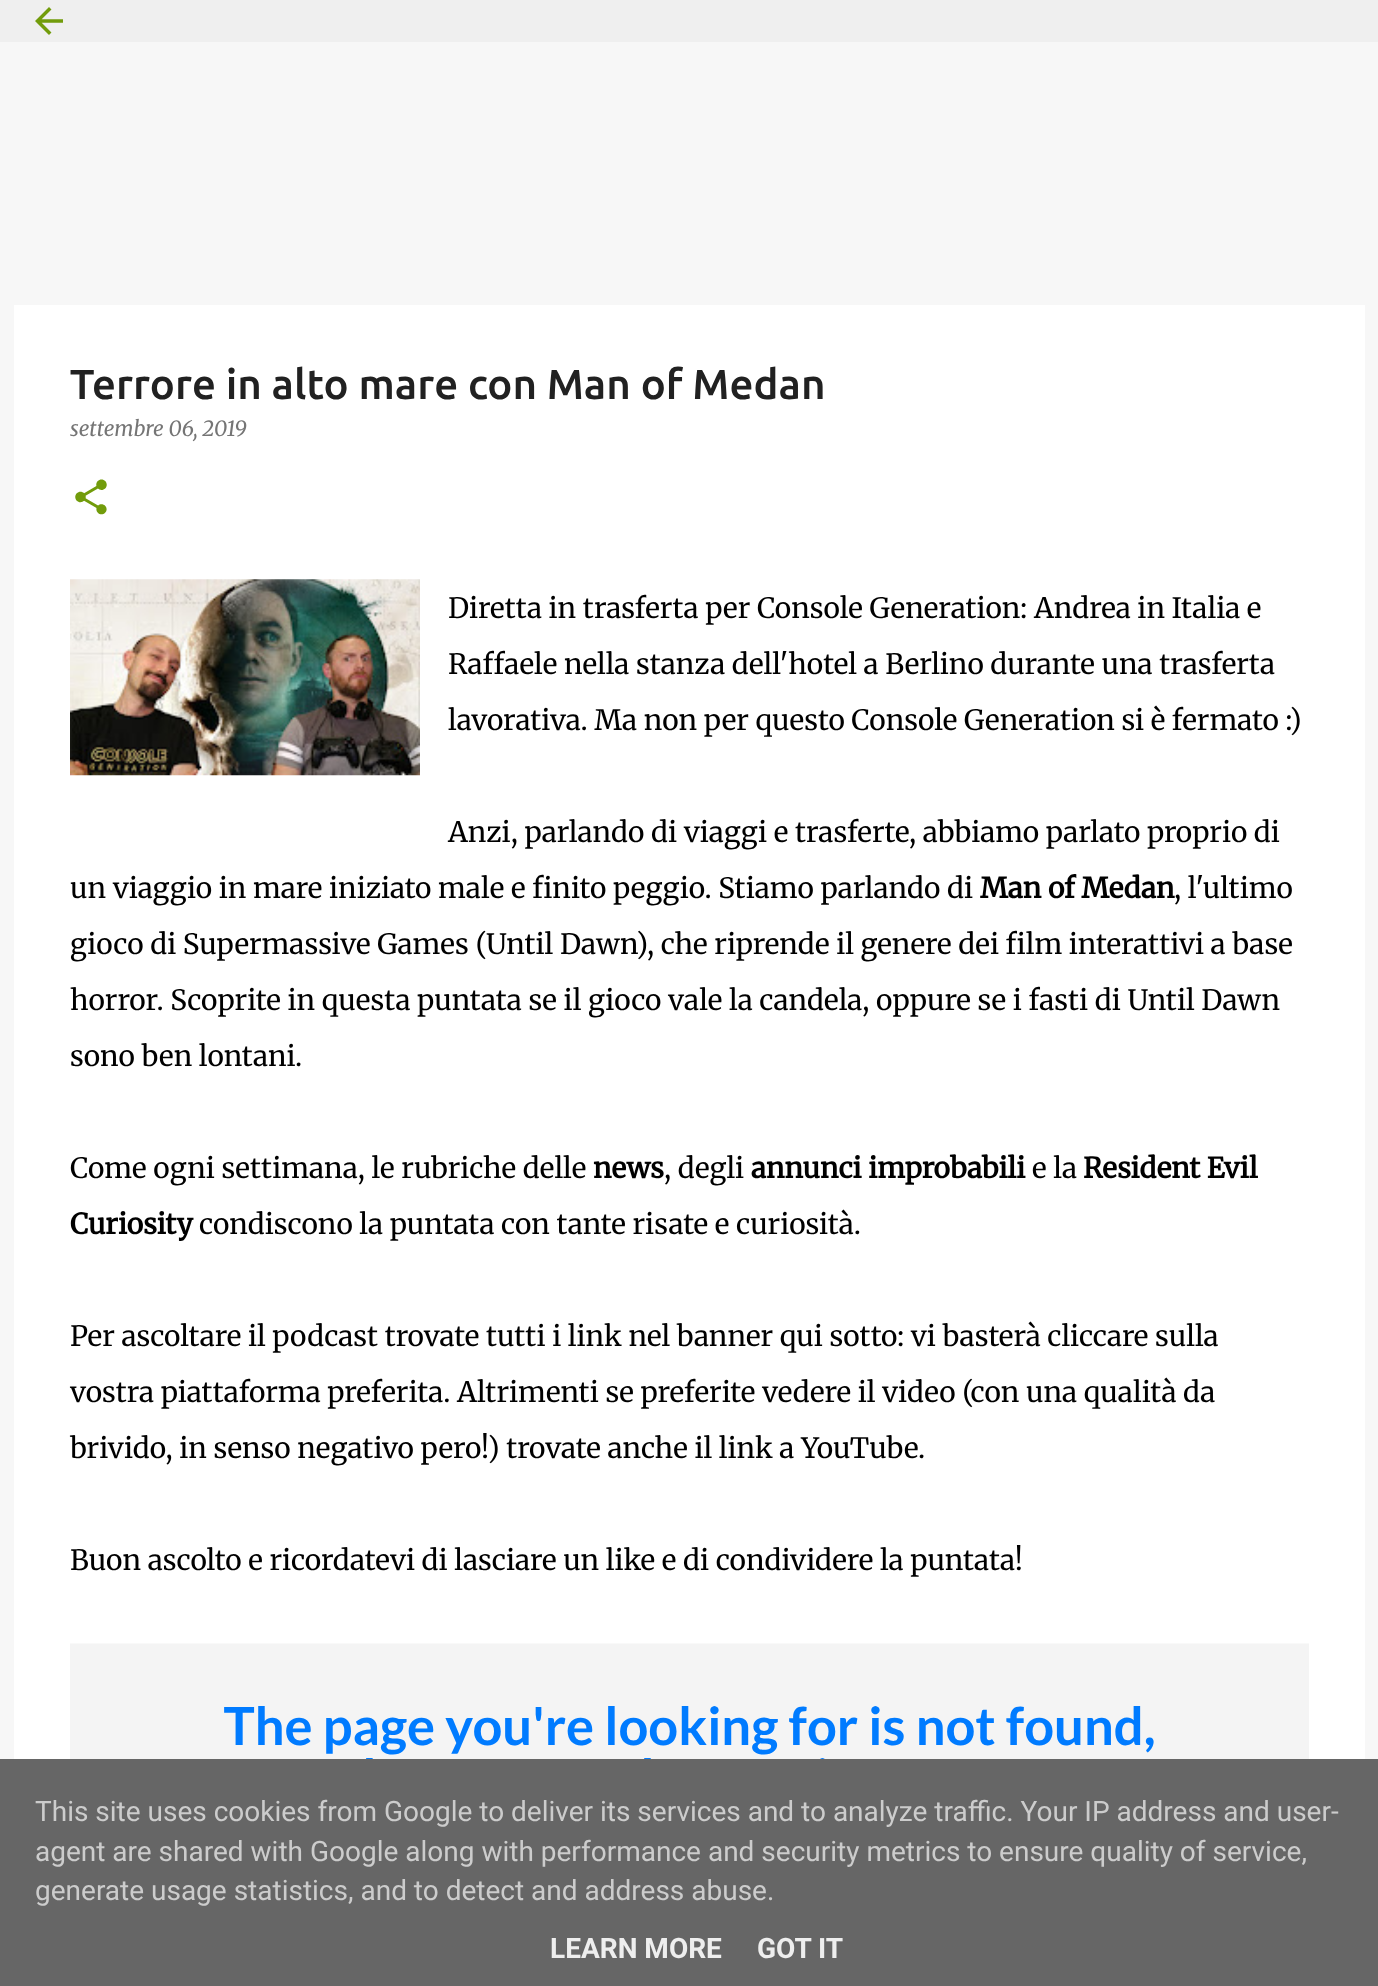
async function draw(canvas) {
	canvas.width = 1378;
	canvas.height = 1986;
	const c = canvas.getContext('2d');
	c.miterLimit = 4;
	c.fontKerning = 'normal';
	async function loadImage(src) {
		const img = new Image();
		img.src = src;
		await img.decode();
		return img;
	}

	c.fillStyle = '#f7f7f7';
	c.fillRect(0, 0, 1378, 1986);
	c.fillStyle = '#efefef';
	c.fillRect(0, 0, 1378, 42);
	c.drawImage(await loadImage('img1.png'), 35, 7, 28, 28);
	c.fillStyle = '#fff';
	c.fillRect(14, 305, 1351, 1454);
	c.font = '500 42px Ubuntu';
	c.fillStyle = '#212121';
	c.fillText('Terrore in alto mare con Man of Medan', 70, 399);
	c.font = 'italic 300 21px Merriweather';
	c.fillStyle = '#757575';
	c.fillText('settembre 06, 2019', 70, 436);
	c.drawImage(await loadImage('img2.png'), 75, 479, 32, 36);
	c.drawImage(await loadImage('img3.png'), 70, 579, 350, 197);
	c.font = '300 28px Merriweather';
	c.fillStyle = '#000';
	for (const [text, x, y] of [
		['Diretta in trasferta per Console Generation: Andrea in Italia e', 448, 618],
		['Raffaele nella stanza dell\'hotel a Berlino durante una trasferta', 448, 674],
		['lavorativa. Ma non per questo Console Generation si è fermato :)', 448, 730],
		['Anzi, parlando di viaggi e trasferte, abbiamo parlato proprio di', 448, 842],
		['un viaggio in mare iniziato male e finito peggio. Stiamo parlando di', 70, 898],
	]) {
		c.fillText(text, x, y);
	}
	c.font = 'bold 28px Merriweather';
	c.fillText('Man of Medan', 980, 898);
	c.font = '300 28px Merriweather';
	for (const [text, x, y] of [
		[', l\'ultimo', 1174, 898],
		['gioco di Supermassive Games (Until Dawn), che riprende il genere dei film interattivi a base', 70, 954],
		['horror. Scoprite in questa puntata se il gioco vale la candela, oppure se i fasti di Until Dawn', 70, 1010],
		['sono ben lontani.', 70, 1066],
		['Come ogni settimana, le rubriche delle', 70, 1178],
	]) {
		c.fillText(text, x, y);
	}
	c.font = 'bold 28px Merriweather';
	c.fillText('news', 593, 1178);
	c.font = '300 28px Merriweather';
	c.fillText(', degli', 664, 1178);
	c.font = 'bold 28px Merriweather';
	c.fillText('annunci improbabili', 751, 1178);
	c.font = '300 28px Merriweather';
	c.fillText('e la', 1032, 1178);
	c.font = 'bold 28px Merriweather';
	c.fillText('Resident Evil', 1083, 1178);
	c.fillText('Curiosity', 70, 1234);
	c.font = '300 28px Merriweather';
	for (const [text, x, y] of [
		['condiscono la puntata con tante risate e curiosità.', 199, 1234],
		['Per ascoltare il podcast trovate tutti i link nel banner qui sotto: vi basterà cliccare sulla', 70, 1346],
		['vostra piattaforma preferita. Altrimenti se preferite vedere il video (con una qualità da', 70, 1402],
		['brivido, in senso negativo pero!) trovate anche il link a YouTube.', 70, 1458],
		['Buon ascolto e ricordatevi di lasciare un like e di condividere la puntata!', 70, 1570],
	]) {
		c.fillText(text, x, y);
	}
	c.drawImage(await loadImage('img4.png'), 70, 1643, 1239, 116);
	c.fillStyle = '#666';
	c.fillRect(0, 1759, 1378, 227);
	c.font = '28px Roboto';
	c.fillStyle = '#ccc';
	for (const [text, x, y] of [
		['This site uses cookies from Google to deliver its services and to analyze traffic. Your IP address and user-', 35, 1821],
		['agent are shared with Google along with performance and security metrics to ensure quality of service,', 35, 1861],
		['generate usage statistics, and to detect and address abuse.', 35, 1900],
	]) {
		c.fillText(text, x, y);
	}
	c.font = 'bold 28px Roboto';
	c.fillStyle = '#eee';
	c.fillText('LEARN MORE', 550, 1958);
	c.fillText('GOT IT', 757, 1958);
}

draw(document.querySelector('canvas'));
